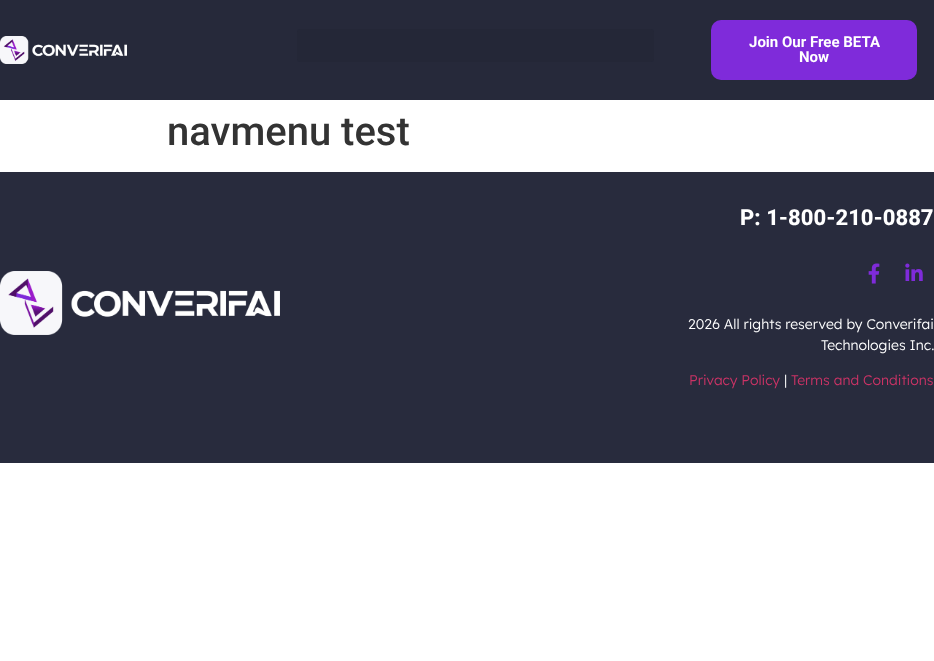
async function draw(canvas) {
	canvas.width = 934;
	canvas.height = 661;
	const c = canvas.getContext('2d');
	c.miterLimit = 4;
	c.fontKerning = 'normal';
	async function loadImage(src) {
		const img = new Image();
		img.src = src;
		await img.decode();
		return img;
	}

	c.fillStyle = '#fff';
	c.fillRect(0, 0, 934, 661);
	c.fillStyle = '#26293a';
	c.fillRect(0, 0, 934, 100);
	c.drawImage(await loadImage('img1.png'), 0, 36, 127, 28);
	c.fillStyle = '#242737';
	c.beginPath();
	c.roundRect(297, 29, 357, 33, 3);
	c.fill();
	c.fillStyle = '#7f2bda';
	c.beginPath();
	c.roundRect(711, 20, 206, 60, 10);
	c.fill();
	c.font = 'bold 15px Roboto';
	c.fillStyle = '#fff';
	c.fillText('Join Our Free BETA', 749, 47);
	c.fillText('Now', 799, 62);
	c.font = '500 40px Roboto';
	c.fillStyle = '#333';
	c.fillText('navmenu test', 167, 145);
	c.fillStyle = '#282b3d';
	c.fillRect(0, 172, 934, 291);
	c.drawImage(await loadImage('img2.png'), 0, 271, 280, 64);
	c.font = '800 22px Roboto';
	c.fillStyle = '#fff';
	c.fillText('P: 1-800-210-0887', 740, 225);
	c.drawImage(await loadImage('img3.png'), 868, 263, 12, 21);
	c.drawImage(await loadImage('img4.png'), 905, 263, 18, 18);
	c.font = '300 14px Lexend Deca';
	c.fillText('2026 All rights reserved by Converifai', 688, 329);
	c.fillText('Technologies Inc.', 821, 350);
	c.fillStyle = '#c36';
	c.fillText('Privacy Policy', 689, 385);
	c.fillStyle = '#fff';
	c.fillText('|', 784, 385);
	c.fillStyle = '#c36';
	c.fillText('Terms and Conditions', 791, 385);
}

draw(document.querySelector('canvas'));
